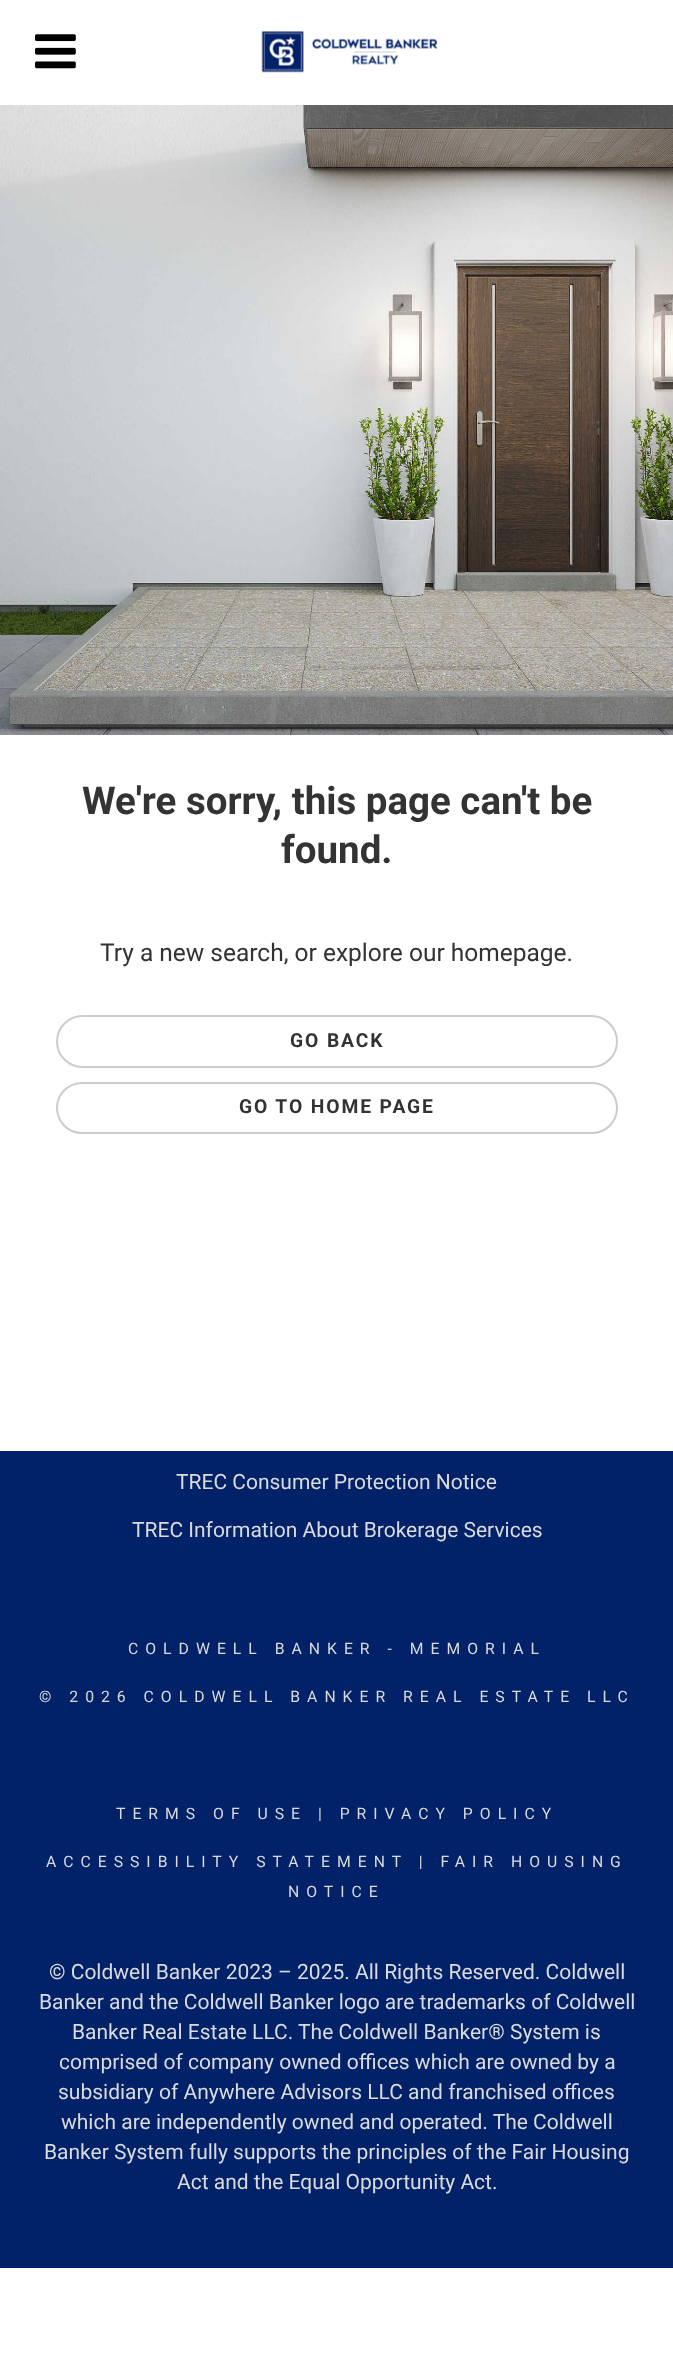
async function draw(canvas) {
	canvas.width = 673;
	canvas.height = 2372;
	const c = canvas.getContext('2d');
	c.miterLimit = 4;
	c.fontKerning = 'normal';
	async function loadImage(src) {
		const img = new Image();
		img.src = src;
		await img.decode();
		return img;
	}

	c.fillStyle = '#fff';
	c.fillRect(0, 0, 673, 2372);
	c.drawImage(await loadImage('img1.png'), 35, 34, 41, 35);
	c.drawImage(await loadImage('img2.png'), 261, 31, 177, 42);
	c.drawImage(await loadImage('img3.png'), 0, 105, 673, 630);
	c.font = 'bold 38.5px Roboto';
	c.fillStyle = '#333';
	c.fillText('We\'re sorry, this page can\'t be', 82, 814);
	c.fillText('found.', 281, 863);
	c.font = '24.5px Roboto';
	c.fillText('Try a new search, or explore our homepage.', 100, 961);
	c.beginPath();
	c.roundRect(57, 1016, 560, 51, 25.5);
	c.strokeStyle = '#ccc';
	c.lineWidth = 2;
	c.stroke();
	c.letterSpacing = '1.9px';
	c.font = 'bold 19.25px Roboto';
	c.fillText('GO BACK', 290, 1047);
	c.beginPath();
	c.roundRect(57, 1083, 560, 50, 25);
	c.stroke();
	c.fillText('GO TO HOME PAGE', 239, 1113);
	c.fillStyle = '#012169';
	c.fillRect(0, 1451, 673, 817);
	c.letterSpacing = '0px';
	c.font = '21px Roboto';
	c.fillStyle = '#dbdbdb';
	c.fillText('TREC Consumer Protection Notice', 176, 1489);
	c.fillText('TREC Information About Brokerage Services', 132, 1537);
	c.letterSpacing = '7px';
	c.font = '15.75px Roboto';
	for (const [text, x, y] of [
		['COLDWELL BANKER - MEMORIAL', 128, 1654],
		['© 2026 COLDWELL BANKER REAL ESTATE LLC', 39, 1702],
		['TERMS OF USE | PRIVACY POLICY', 116, 1819],
		['ACCESSIBILITY STATEMENT | FAIR HOUSING', 46, 1867],
		['NOTICE', 288, 1897],
	]) {
		c.fillText(text, x, y);
	}
	c.letterSpacing = '0px';
	c.font = '21px Roboto';
	for (const [text, x, y] of [
		['© Coldwell Banker 2023 – 2025. All Rights Reserved. Coldwell', 49, 1979],
		['Banker and the Coldwell Banker logo are trademarks of Coldwell', 39, 2009],
		['Banker Real Estate LLC. The Coldwell Banker® System is', 72, 2039],
		['comprised of company owned offices which are owned by a', 59, 2069],
		['subsidiary of Anywhere Advisors LLC and franchised offices', 58, 2099],
		['which are independently owned and operated. The Coldwell', 61, 2129],
		['Banker System fully supports the principles of the Fair Housing', 44, 2159],
		['Act and the Equal Opportunity Act.', 177, 2189],
	]) {
		c.fillText(text, x, y);
	}
}

draw(document.querySelector('canvas'));
